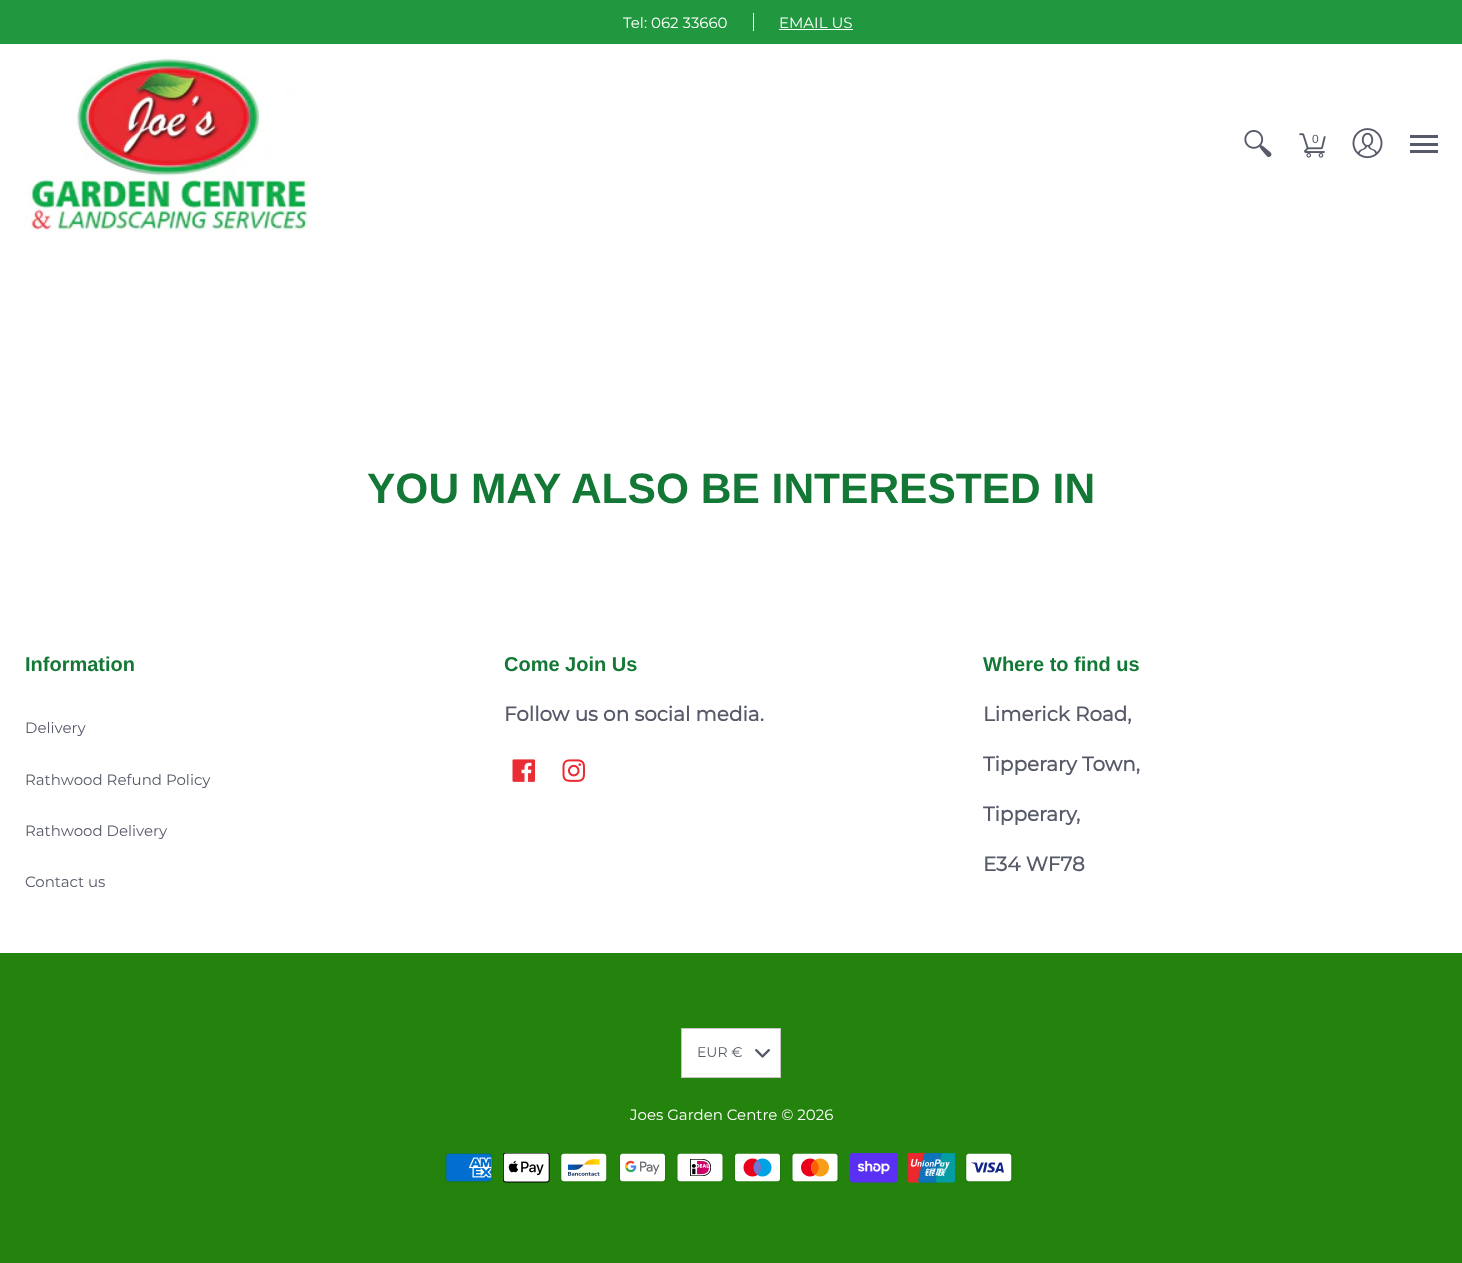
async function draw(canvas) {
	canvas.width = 1462;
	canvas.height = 1263;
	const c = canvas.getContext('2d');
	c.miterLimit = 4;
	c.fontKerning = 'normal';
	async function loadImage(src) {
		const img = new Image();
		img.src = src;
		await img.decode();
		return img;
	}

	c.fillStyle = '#fff';
	c.fillRect(0, 0, 1462, 1263);
	c.fillStyle = '#219840';
	c.fillRect(0, 0, 1462, 44);
	c.font = '15px Montserrat';
	c.fillStyle = '#fff';
	c.fillText('Tel: 062 33660', 623, 28);
	c.fillRect(753, 13, 1, 18);
	c.fillText('EMAIL US', 779, 28);
	c.fillRect(779, 29, 74, 1);
	c.drawImage(await loadImage('img1.png'), 25, 56, 288, 176);
	c.drawImage(await loadImage('img2.png'), 1244, 130, 28, 27);
	c.drawImage(await loadImage('img3.png'), 1299, 133, 27, 25);
	c.font = '12px Liberation Sans';
	c.fillStyle = '#575b69';
	c.fillText('0', 1312, 143);
	c.drawImage(await loadImage('img4.png'), 1352, 128, 31, 31);
	for (const [x, y, w, h, color] of [
		[1410, 135, 28, 3, '#575b69'],
		[1410, 150, 28, 3, '#575b69'],
		[1410, 143, 28, 3, '#575b69'],
	]) {
		c.fillStyle = color;
		c.fillRect(x, y, w, h);
	}
	c.font = 'bold 42.5px Arimo';
	c.fillStyle = '#137835';
	c.fillText('YOU MAY ALSO BE INTERESTED IN', 367, 503);
	c.font = 'bold 20px Arimo';
	c.fillText('Information', 25, 671);
	c.font = '15px Montserrat';
	c.fillStyle = '#575b69';
	for (const [text, x, y] of [
		['Delivery', 25, 733],
		['Rathwood Refund Policy', 25, 785],
		['Rathwood Delivery', 25, 836],
		['Contact us', 25, 887],
	]) {
		c.fillText(text, x, y);
	}
	c.font = 'bold 20px Arimo';
	c.fillStyle = '#137835';
	c.fillText('Come Join Us', 504, 671);
	c.font = 'bold 20px Montserrat';
	c.fillStyle = '#575b69';
	c.fillText('Follow us on social media.', 504, 721);
	c.drawImage(await loadImage('img5.png'), 512, 759, 23, 23);
	c.drawImage(await loadImage('img6.png'), 562, 759, 23, 23);
	c.font = 'bold 20px Arimo';
	c.fillStyle = '#137835';
	c.fillText('Where to find us', 983, 671);
	c.font = 'bold 20px Montserrat';
	c.fillStyle = '#575b69';
	for (const [text, x, y] of [
		['Limerick Road,', 983, 721],
		['Tipperary Town,', 983, 771],
		['Tipperary,', 983, 821],
		['E34 WF78', 983, 871],
	]) {
		c.fillText(text, x, y);
	}
	c.fillStyle = '#24830c';
	c.fillRect(0, 953, 1462, 310);
	c.fillStyle = '#fff';
	c.fillRect(682, 1029, 98, 48);
	c.drawImage(await loadImage('img8.png'), 755, 1049, 15, 9);
	c.drawImage(await loadImage('img7.png'), 755, 1049, 15, 9);
	c.strokeStyle = '#cac4c4';
	c.strokeRect(681.5, 1028.5, 99, 49);
	c.font = '14px Montserrat';
	c.fillStyle = '#575b69';
	c.fillText('EUR €', 697, 1057);
	c.font = '15px Montserrat';
	c.fillStyle = '#fff';
	c.fillText('Joes Garden Centre © 2026', 630, 1120);
	c.drawImage(await loadImage('img9.png'), 445, 1153, 48, 30);
	c.drawImage(await loadImage('img10.png'), 503, 1153, 47, 30);
	c.drawImage(await loadImage('img11.png'), 560, 1153, 48, 30);
	c.drawImage(await loadImage('img12.png'), 619, 1153, 47, 30);
	c.drawImage(await loadImage('img13.png'), 676, 1153, 48, 30);
	c.drawImage(await loadImage('img14.png'), 734, 1153, 47, 30);
	c.drawImage(await loadImage('img15.png'), 791, 1153, 48, 30);
	c.drawImage(await loadImage('img16.png'), 850, 1153, 48, 30);
	c.drawImage(await loadImage('img17.png'), 908, 1153, 47, 30);
	c.drawImage(await loadImage('img18.png'), 965, 1153, 48, 30);
}

draw(document.querySelector('canvas'));
